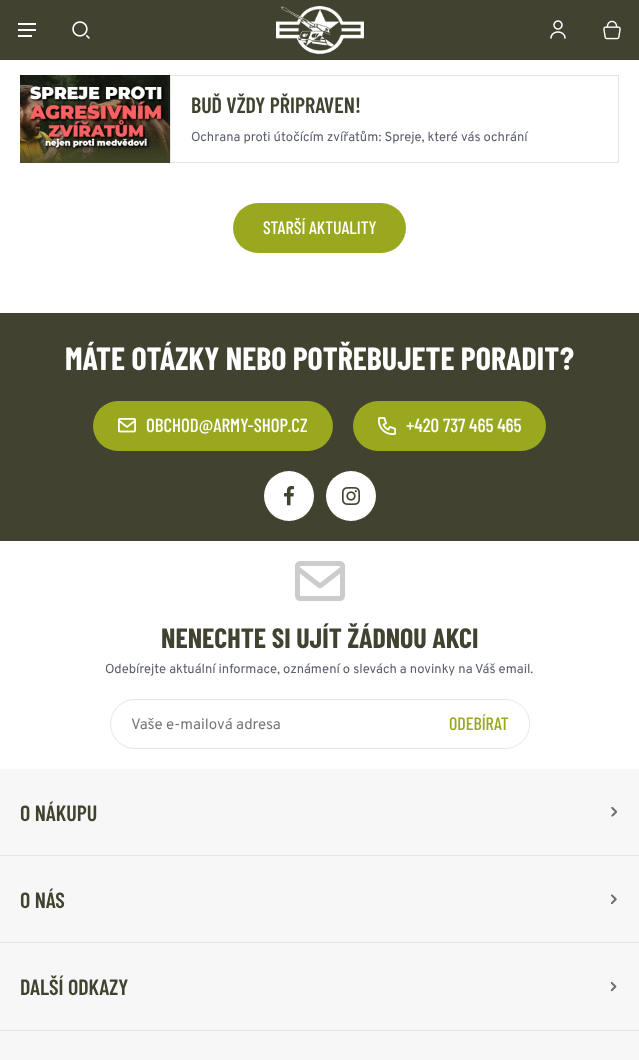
async function draw(canvas) {
	canvas.width = 639;
	canvas.height = 1060;
	const c = canvas.getContext('2d');
	c.miterLimit = 4;
	c.fontKerning = 'normal';
	async function loadImage(src) {
		const img = new Image();
		img.src = src;
		await img.decode();
		return img;
	}

	c.fillStyle = '#fff';
	c.fillRect(0, 0, 639, 1060);
	for (const [x, y, w, h, color] of [
		[0, 0, 639, 60, '#41422f'],
		[18, 29, 18, 2, '#fff'],
		[18, 23, 18, 2, '#fff'],
		[18, 35, 14, 2, '#fff'],
	]) {
		c.fillStyle = color;
		c.fillRect(x, y, w, h);
	}
	c.drawImage(await loadImage('img1.png'), 72, 21, 18, 18);
	c.drawImage(await loadImage('img2.png'), 276, 6, 88, 48);
	c.drawImage(await loadImage('img3.png'), 550, 20, 16, 19);
	c.drawImage(await loadImage('img4.png'), 603, 20, 18, 20);
	c.drawImage(await loadImage('img5.png'), 20, 75, 150, 88);
	c.strokeStyle = '#e5e5e5';
	c.strokeRect(170.5, 75.5, 448, 87);
	c.font = '600 22px Barlow Condensed';
	c.fillStyle = '#41422f';
	c.fillText('BUĎ VŽDY PŘIPRAVEN!', 191, 113);
	c.font = '13px Overpass';
	c.fillStyle = '#5b606d';
	c.fillText('Ochrana proti útočícím zvířatům: Spreje, které vás ochrání', 191, 141);
	c.fillStyle = '#9aa820';
	c.beginPath();
	c.roundRect(233, 203, 173, 50, 25);
	c.fill();
	c.font = '500 18px Barlow Condensed';
	c.fillStyle = '#fff';
	c.fillText('STARŠÍ AKTUALITY', 263, 234);
	c.fillStyle = '#41422f';
	c.fillRect(0, 313, 639, 228);
	c.font = 'bold 32px Barlow Condensed';
	c.fillStyle = '#fff';
	c.fillText('MÁTE OTÁZKY NEBO POTŘEBUJETE PORADIT?', 65, 370);
	c.fillStyle = '#9aa820';
	c.beginPath();
	c.roundRect(93, 401, 240, 50, 25);
	c.fill();
	c.drawImage(await loadImage('img6.png'), 118, 418, 18, 15);
	c.font = '500 19px Barlow Condensed';
	c.fillStyle = '#fff';
	c.fillText('OBCHOD@ARMY-SHOP.CZ', 146, 432);
	c.fillStyle = '#9aa820';
	c.beginPath();
	c.roundRect(353, 401, 193, 50, 25);
	c.fill();
	c.drawImage(await loadImage('img7.png'), 378, 417, 18, 18);
	c.fillStyle = '#fff';
	c.fillText('+420 737 465 465', 406, 432);
	c.beginPath();
	c.arc(289, 496, 25, 0, 2 * Math.PI);
	c.fill();
	c.drawImage(await loadImage('img8.png'), 284, 486, 10, 20);
	c.beginPath();
	c.arc(351, 496, 25, 0, 2 * Math.PI);
	c.fill();
	c.drawImage(await loadImage('img9.png'), 342, 487, 18, 18);
	c.drawImage(await loadImage('img10.png'), 295, 561, 50, 40);
	c.font = 'bold 28px Barlow Condensed';
	c.fillStyle = '#41422f';
	c.fillText('NENECHTE SI UJÍT ŽÁDNOU AKCI', 161, 648);
	c.font = '13px Overpass';
	c.fillStyle = '#5b606d';
	c.fillText('Odebírejte aktuální informace, oznámení o slevách a novinky na Váš email.', 105, 673);
	c.beginPath();
	c.roundRect(110.5, 699.5, 419, 49, 24.5);
	c.stroke();
	c.font = '15px Overpass';
	c.fillStyle = '#757575';
	c.fillText('Vaše e-mailová adresa', 131, 729);
	c.fillStyle = '#fff';
	c.beginPath();
	c.roundRect(429, 700, 100, 48, 24);
	c.fill();
	c.font = '500 18px Barlow Condensed';
	c.fillStyle = '#9aa820';
	c.fillText('ODEBÍRAT', 449, 730);
	c.fillStyle = '#f7f7f7';
	c.fillRect(0, 769, 639, 291);
	c.fillStyle = '#e5e5e5';
	c.fillRect(0, 855, 639, 1);
	c.font = '600 22px Barlow Condensed';
	c.fillStyle = '#41422f';
	c.fillText('O NÁKUPU', 20, 821);
	c.drawImage(await loadImage('img11.png'), 611, 807, 6, 10);
	c.fillStyle = '#e5e5e5';
	c.fillRect(0, 942, 639, 1);
	c.fillStyle = '#41422f';
	c.fillText('O NÁS', 20, 908);
	c.drawImage(await loadImage('img12.png'), 611, 894, 6, 10);
	c.fillStyle = '#e5e5e5';
	c.fillRect(0, 1030, 639, 1);
	c.fillStyle = '#41422f';
	c.fillText('DALŠÍ ODKAZY', 20, 995);
	c.drawImage(await loadImage('img13.png'), 610, 981, 7, 11);
}

draw(document.querySelector('canvas'));
